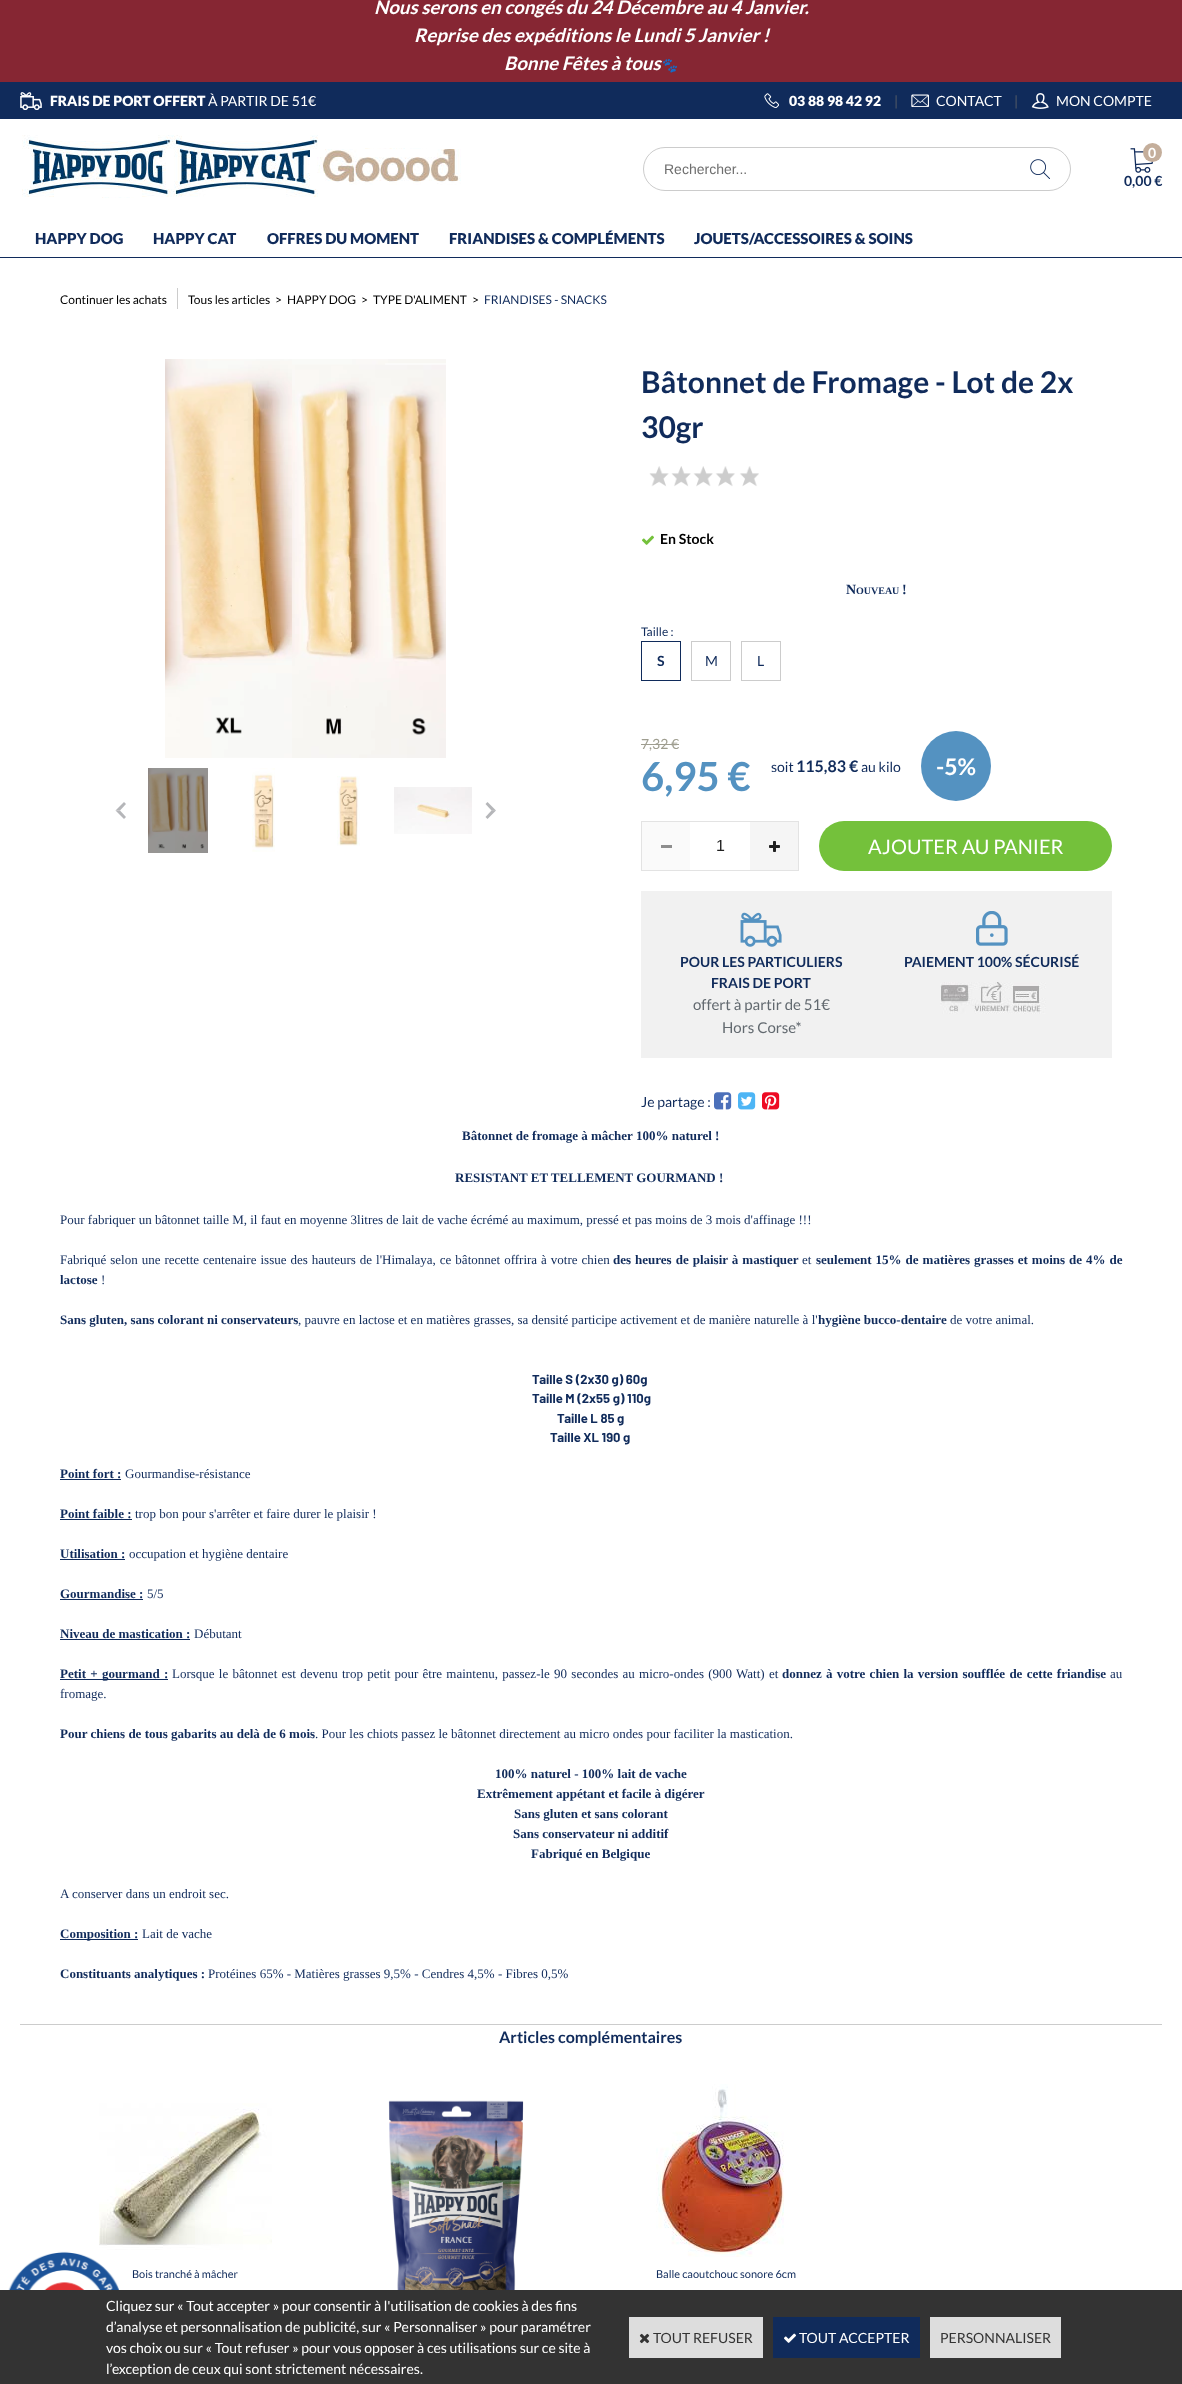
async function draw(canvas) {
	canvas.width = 1182;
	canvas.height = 2384;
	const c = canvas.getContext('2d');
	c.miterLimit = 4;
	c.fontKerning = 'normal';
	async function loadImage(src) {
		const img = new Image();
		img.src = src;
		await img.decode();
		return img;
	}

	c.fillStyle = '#fff';
	c.fillRect(0, 0, 1182, 2384);
	c.fillStyle = '#862633';
	c.fillRect(0, 0, 1182, 82);
	c.font = 'italic bold 18.7px Lato';
	c.fillStyle = '#fff';
	for (const [text, x, y] of [
		['Nous serons en congés du 24 Décembre au 4 Janvier.', 374, 14],
		['Reprise des expéditions le Lundi 5 Janvier !', 414, 42],
		['Bonne Fêtes à tous', 504, 70],
	]) {
		c.fillText(text, x, y);
	}
	c.font = 'italic 14px Noto Color Emoji';
	c.fillStyle = '#102b5b';
	c.fillText('🐾', 660, 70);
	c.fillRect(0, 82, 1182, 37);
	c.fillRect(0, 257, 1182, 1);
	c.drawImage(await loadImage('img1.png'), 20, 92, 22, 18);
	c.font = '900 14px Lato';
	c.fillStyle = '#fff';
	c.fillText('FRAIS DE PORT OFFERT', 50, 106);
	c.font = '14px Lato';
	c.fillText('À PARTIR DE 51€', 208, 106);
	c.drawImage(await loadImage('img2.png'), 764, 93, 15, 15);
	c.font = '900 14px Lato';
	c.fillText('03 88 98 42 92', 789, 106);
	c.font = '14px Lato';
	c.fillStyle = '#555c67';
	c.fillText('|', 894, 106);
	c.drawImage(await loadImage('img3.png'), 911, 94, 18, 13);
	c.fillStyle = '#fff';
	c.fillText('CONTACT', 936, 106);
	c.fillStyle = '#555c67';
	c.fillText('|', 1014, 106);
	c.drawImage(await loadImage('img4.png'), 1031, 93, 18, 16);
	c.fillStyle = '#fff';
	c.fillText('MON COMPTE', 1056, 106);
	c.drawImage(await loadImage('img5.png'), 22, 135, 439, 63);
	c.beginPath();
	c.roundRect(643.5, 147.5, 427, 43, 21.5);
	c.strokeStyle = '#ccc';
	c.stroke();
	c.font = '14px Liberation Sans';
	c.fillStyle = '#6e6e6e';
	c.fillText('Rechercher...', 664, 174);
	c.drawImage(await loadImage('img6.png'), 1030, 159, 20, 20);
	c.drawImage(await loadImage('img7.png'), 1130, 148, 24, 25);
	c.fillStyle = '#c4ae9b';
	c.beginPath();
	c.arc(1152.5, 152.5, 9.5, 0, 2 * Math.PI);
	c.fill();
	c.font = 'bold 14px Lato';
	c.fillStyle = '#fff';
	c.fillText('0', 1148, 158);
	c.fillStyle = '#102b5b';
	c.fillText('0,00 €', 1124, 186);
	c.font = '900 15px Lato';
	for (const [text, x, y] of [
		['HAPPY DOG', 35, 244],
		['HAPPY CAT', 153, 244],
		['OFFRES DU MOMENT', 267, 244],
		['FRIANDISES & COMPLÉMENTS', 449, 244],
		['JOUETS/ACCESSOIRES & SOINS', 694, 244],
	]) {
		c.fillText(text, x, y);
	}
	c.font = '12px Lato';
	c.fillStyle = '#000';
	c.fillText('Continuer les achats', 60, 304);
	c.fillStyle = '#ccc';
	c.fillRect(177, 288, 1, 21);
	c.fillStyle = '#000';
	for (const [text, x, y] of [
		['Tous les articles', 188, 304],
		['>', 275, 304],
		['HAPPY DOG', 287, 304],
		['>', 361, 304],
		['TYPE D\'ALIMENT', 373, 304],
		['>', 472, 304],
	]) {
		c.fillText(text, x, y);
	}
	c.fillStyle = '#102b5b';
	c.fillText('FRIANDISES - SNACKS', 484, 304);
	c.drawImage(await loadImage('img8.png'), 165, 359, 281, 399);
	c.fillStyle = '#b5b6b9';
	c.beginPath();
	c.moveTo(115.5, 810.5);
	c.lineTo(124, 802);
	c.lineTo(126, 804);
	c.lineTo(120, 810.5);
	c.closePath();
	c.fill();
	c.beginPath();
	c.moveTo(124, 819);
	c.lineTo(115.5, 810.5);
	c.lineTo(120, 810.5);
	c.lineTo(126, 817);
	c.closePath();
	c.fill();
	c.drawImage(await loadImage('img9.png'), 148, 768, 60, 85);
	c.drawImage(await loadImage('img10.png'), 252, 768, 23, 84);
	c.drawImage(await loadImage('img11.png'), 337, 776, 23, 70);
	c.drawImage(await loadImage('img12.png'), 394, 787, 78, 47);
	c.beginPath();
	c.moveTo(496, 810.5);
	c.lineTo(487.5, 819);
	c.lineTo(485.5, 817);
	c.lineTo(491.5, 810.5);
	c.closePath();
	c.fill();
	c.fillStyle = '#83858b99';
	c.beginPath();
	c.moveTo(487.5, 802);
	c.lineTo(496, 810.5);
	c.lineTo(491.5, 810.5);
	c.lineTo(485.5, 804);
	c.closePath();
	c.fill();
	c.font = 'bold 30px Lato';
	c.fillStyle = '#102b5b';
	c.fillText('Bâtonnet de Fromage - Lot de 2x', 641, 393);
	c.fillText('30gr', 641, 438);
	c.drawImage(await loadImage('img13.png'), 649, 466, 110, 21);
	c.drawImage(await loadImage('img14.png'), 642, 535, 12, 10);
	c.font = 'bold 14px Lato';
	c.fillStyle = '#000';
	c.fillText('En Stock', 660, 544);
	c.font = 'bold 14px Liberation Serif';
	c.fillStyle = '#102b5b';
	c.fillText('N', 846, 594);
	c.font = 'bold 10px Liberation Serif';
	c.fillText('OUVEAU', 856, 594);
	c.font = 'bold 14px Liberation Serif';
	c.fillText('!', 902, 594);
	c.font = '12px Lato';
	c.fillText('Taille :', 641, 636);
	c.strokeStyle = '#102b5b';
	c.strokeRect(641.5, 641.5, 39, 39);
	c.font = 'bold 14px Lato';
	c.fillText('S', 657, 666);
	c.strokeStyle = '#ccc';
	c.strokeRect(691.5, 641.5, 39, 39);
	c.font = '14px Lato';
	c.fillText('M', 705, 666);
	c.strokeRect(741.5, 641.5, 39, 39);
	c.fillText('L', 757, 666);
	c.fillStyle = '#9f9e90';
	c.fillText('7,32 €', 641, 749);
	c.fillRect(641, 744, 38, 1);
	c.font = 'bold 40px Lato';
	c.fillStyle = '#5492c1';
	c.fillText('6,95 €', 641, 791);
	c.font = '14px Lato';
	c.fillStyle = '#102b5b';
	c.fillText('soit', 771, 772);
	c.font = 'bold 16px Lato';
	c.fillText('115,83 €', 796, 772);
	c.font = '14px Lato';
	c.fillText('au kilo', 861, 772);
	c.fillStyle = '#5492c1';
	c.beginPath();
	c.arc(956, 766, 35, 0, 2 * Math.PI);
	c.fill();
	c.font = 'bold 23px Lato';
	c.fillStyle = '#fff';
	c.fillText('-5%', 936, 775);
	c.strokeStyle = '#e3e3e3';
	c.strokeRect(641.5, 821.5, 157, 49);
	c.fillStyle = '#fafafa';
	c.fillRect(642, 822, 48, 48);
	c.fillStyle = '#8e8e8e';
	c.fillRect(661, 845, 11, 3);
	c.font = '16px Liberation Sans';
	c.fillStyle = '#212121';
	c.fillText('1', 716, 851);
	c.fillStyle = '#f5f5f5';
	c.fillRect(750, 822, 48, 48);
	c.drawImage(await loadImage('img15.png'), 769, 841, 11, 11);
	c.fillStyle = '#74c13b';
	c.beginPath();
	c.roundRect(819, 821, 293, 50, 25);
	c.fill();
	c.font = '20px Lato';
	c.fillStyle = '#fff';
	c.fillText('AJOUTER AU PANIER', 868, 854);
	c.fillStyle = '#f1f1f1';
	c.fillRect(641, 891, 471, 167);
	c.drawImage(await loadImage('img16.png'), 740, 912, 42, 35);
	c.font = 'bold 14px Lato';
	c.fillStyle = '#102b5b';
	c.fillText('POUR LES PARTICULIERS', 680, 967);
	c.fillText('FRAIS DE PORT', 711, 988);
	c.font = '15px Lato';
	c.fillStyle = '#62696f';
	c.fillText('offert à partir de 51€', 693, 1010);
	c.fillText('Hors Corse*', 722, 1033);
	c.drawImage(await loadImage('img17.png'), 976, 911, 32, 35);
	c.font = 'bold 14px Lato';
	c.fillStyle = '#102b5b';
	c.fillText('PAIEMENT 100% SÉCURISÉ', 904, 967);
	c.drawImage(await loadImage('img18.png'), 940, 982, 106, 32);
	c.font = '14px Lato';
	c.fillText('Je partage :', 641, 1107);
	c.drawImage(await loadImage('img19.png'), 714, 1092, 18, 18);
	c.drawImage(await loadImage('img20.png'), 738, 1092, 18, 18);
	c.drawImage(await loadImage('img21.png'), 762, 1092, 18, 18);
	c.font = 'bold 13px Liberation Serif';
	c.fillText('Bâtonnet de fromage à mâcher 100% naturel !', 462, 1140);
	c.fillText('RESISTANT ET TELLEMENT GOURMAND !', 455, 1182);
	c.font = '13px Liberation Serif';
	c.fillText('Pour fabriquer un bâtonnet taille M, il faut en moyenne 3litres de lait de vache écrémé au maximum, pressé et pas moins de 3 mois d\'affinage !!!', 60, 1224);
	c.wordSpacing = '0.75px';
	c.fillText('Fabriqué selon une recette centenaire issue des hauteurs de l\'Himalaya, ce bâtonnet offrira à votre chien', 60, 1264);
	c.font = 'bold 13px Liberation Serif';
	c.fillText('des heures de plaisir à mastiquer', 613, 1264);
	c.wordSpacing = '0px';
	c.font = '13px Liberation Serif';
	c.fillText('et', 802, 1264);
	c.wordSpacing = '0.75px';
	c.font = 'bold 13px Liberation Serif';
	c.fillText('seulement 15% de matières grasses et moins de 4% de', 816, 1264);
	c.wordSpacing = '0px';
	c.fillText('lactose', 60, 1284);
	c.font = '13px Liberation Serif';
	c.fillText('!', 101, 1284);
	c.font = 'bold 13px Liberation Serif';
	c.fillText('Sans gluten, sans colorant ni conservateurs', 60, 1324);
	c.font = '13px Liberation Serif';
	c.fillText(', pauvre en lactose et en matières grasses, sa densité participe activement et de manière naturelle à l\'', 298, 1324);
	c.font = 'bold 13px Liberation Serif';
	c.fillText('hygiène bucco-dentaire', 818, 1324);
	c.font = '13px Liberation Serif';
	c.fillText('de votre animal.', 950, 1324);
	c.font = 'bold 13px Barlow';
	for (const [text, x, y] of [
		['Taille S (2x30 g) 60g', 532, 1384],
		['Taille M (2x55 g) 110g', 532, 1403],
		['Taille L 85 g', 557, 1423],
		['Taille XL 190 g', 550, 1442],
	]) {
		c.fillText(text, x, y);
	}
	c.font = 'bold 13px Liberation Serif';
	c.fillText('Point fort :', 60, 1478);
	c.fillRect(60, 1479, 61, 1);
	c.font = '13px Liberation Serif';
	c.fillText('Gourmandise-résistance', 125, 1478);
	c.font = 'bold 13px Liberation Serif';
	c.fillText('Point faible :', 60, 1518);
	c.fillRect(60, 1519, 72, 1);
	c.font = '13px Liberation Serif';
	c.fillText('trop bon pour s\'arrêter et faire durer le plaisir !', 135, 1518);
	c.font = 'bold 13px Liberation Serif';
	c.fillText('Utilisation :', 60, 1558);
	c.fillRect(60, 1559, 65, 1);
	c.font = '13px Liberation Serif';
	c.fillText('occupation et hygiène dentaire', 129, 1558);
	c.font = 'bold 13px Liberation Serif';
	c.fillText('Gourmandise :', 60, 1598);
	c.fillRect(60, 1599, 83, 1);
	c.font = '13px Liberation Serif';
	c.fillText('5/5', 147, 1598);
	c.font = 'bold 13px Liberation Serif';
	c.fillText('Niveau de mastication :', 60, 1638);
	c.fillRect(60, 1639, 130, 1);
	c.font = '13px Liberation Serif';
	c.fillText('Débutant', 194, 1638);
	c.fillRect(60, 1679, 108, 1);
	c.wordSpacing = '1px';
	c.font = 'bold 13px Liberation Serif';
	c.fillText('Petit + gourmand :', 60, 1678);
	c.font = '13px Liberation Serif';
	c.fillText('Lorsque le bâtonnet est devenu trop petit pour être maintenu, passez-le 90 secondes au micro-ondes (900 Watt) et', 172, 1678);
	c.font = 'bold 13px Liberation Serif';
	c.fillText('donnez à votre chien la version soufflée de cette friandise', 782, 1678);
	c.wordSpacing = '0px';
	c.font = '13px Liberation Serif';
	c.fillText('au', 1110, 1678);
	c.fillText('fromage.', 60, 1698);
	c.font = 'bold 13px Liberation Serif';
	c.fillText('Pour chiens de tous gabarits au delà de 6 mois', 60, 1738);
	c.font = '13px Liberation Serif';
	c.fillText('. Pour les chiots passez le bâtonnet directement au micro ondes pour faciliter la mastication.', 315, 1738);
	c.font = 'bold 13px Liberation Serif';
	for (const [text, x, y] of [
		['100% naturel - 100% lait de vache', 495, 1778],
		['Extrêmement appétant et facile à digérer', 477, 1798],
		['Sans gluten et sans colorant', 514, 1818],
		['Sans conservateur ni additif', 513, 1838],
		['Fabriqué en Belgique', 531, 1858],
	]) {
		c.fillText(text, x, y);
	}
	c.font = '13px Liberation Serif';
	c.fillText('A conserver dans un endroit sec.', 60, 1898);
	c.fillRect(60, 1939, 78, 1);
	c.font = 'bold 13px Liberation Serif';
	c.fillText('Composition :', 60, 1938);
	c.font = '13px Liberation Serif';
	c.fillText('Lait de vache', 142, 1938);
	c.font = 'bold 13px Liberation Serif';
	c.fillText('Constituants analytiques :', 60, 1978);
	c.font = '13px Liberation Serif';
	c.fillText('Protéines 65% - Matières grasses 9,5% - Cendres 4,5% - Fibres 0,5%', 208, 1978);
	c.fillStyle = '#ccc';
	c.fillRect(20, 2024, 1142, 1);
	c.font = 'bold 16px Lato';
	c.fillStyle = '#102b5b';
	c.fillText('Articles complémentaires', 499, 2043);
	c.drawImage(await loadImage('img22.png'), 99, 2103, 173, 147);
	c.font = '11px Lato';
	c.fillText('Bois tranché à mâcher', 132, 2278);
	c.drawImage(await loadImage('img23.png'), 388, 2100, 136, 190);
	c.drawImage(await loadImage('img24.png'), 656, 2084, 128, 173);
	c.fillText('Balle caoutchouc sonore 6cm', 656, 2278);
	c.fillStyle = '#333';
	c.fillRect(0, 2290, 1182, 94);
	c.font = '14px Lato';
	c.fillStyle = '#fff';
	for (const [text, x, y] of [
		['Cliquez sur « Tout accepter » pour consentir à l\'utilisation de cookies à des fins', 106, 2311],
		['d’analyse et personnalisation de publicité, sur « Personnaliser » pour paramétrer', 106, 2332],
		['vos choix ou sur « Tout refuser » pour vous opposer à ces utilisations sur ce site à', 106, 2353],
		['l’exception de ceux qui sont strictement nécessaires.', 106, 2374],
	]) {
		c.fillText(text, x, y);
	}
	c.fillStyle = '#ddd';
	c.fillRect(629, 2317, 134, 41);
	c.drawImage(await loadImage('img25.png'), 639, 2333, 11, 11);
	c.fillStyle = '#333';
	c.fillText('TOUT REFUSER', 653, 2343);
	c.fillStyle = '#102b5b';
	c.fillRect(773, 2317, 147, 41);
	c.drawImage(await loadImage('img26.png'), 784, 2333, 12, 10);
	c.fillStyle = '#fff';
	c.fillText('TOUT ACCEPTER', 799, 2343);
	c.fillStyle = '#ddd';
	c.fillRect(930, 2317, 131, 41);
	c.fillStyle = '#333';
	c.fillText('PERSONNALISER', 940, 2343);
	c.drawImage(await loadImage('img27.png'), 8, 2251, 112, 39);
}

draw(document.querySelector('canvas'));
